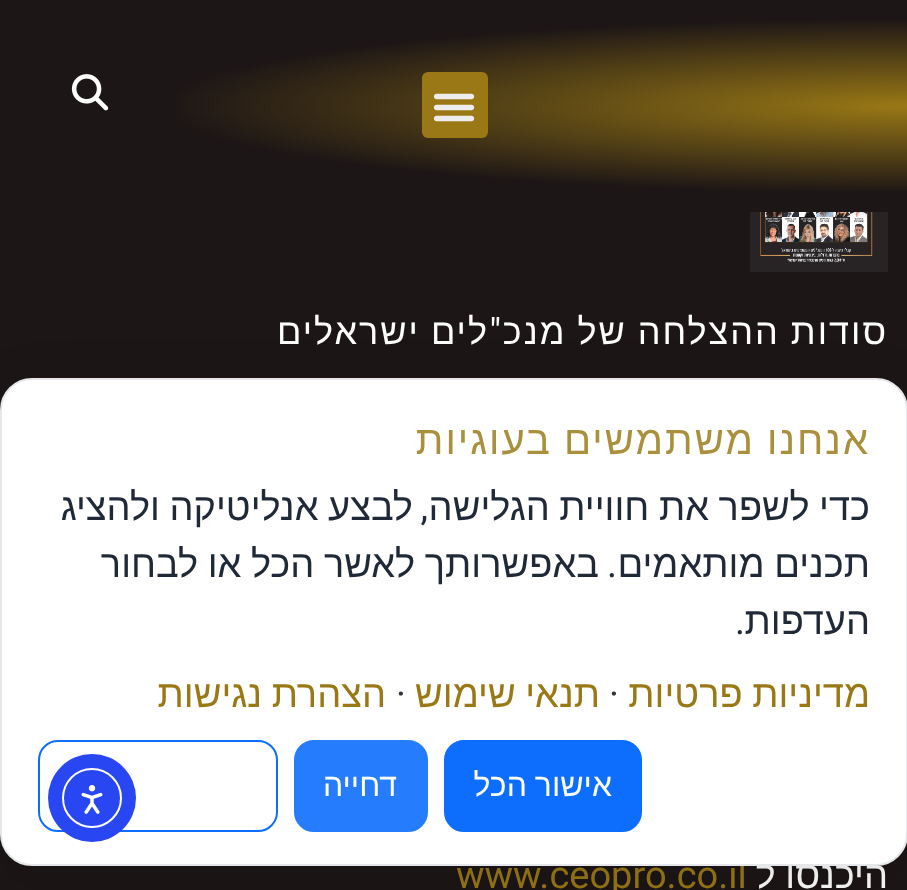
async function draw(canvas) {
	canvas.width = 907;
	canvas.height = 890;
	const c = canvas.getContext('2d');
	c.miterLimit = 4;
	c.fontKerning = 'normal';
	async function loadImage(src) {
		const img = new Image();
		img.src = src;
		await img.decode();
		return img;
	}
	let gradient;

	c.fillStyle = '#1d1616';
	c.fillRect(0, 0, 907, 890);
	gradient = c.createRadialGradient(908, 907.36, 0, 908, 907.36, 1284);
	gradient.addColorStop(0, '#997815');
	gradient.addColorStop(0.58, '#1d1616');
	c.fillStyle = gradient;
	c.beginPath();
	c.rect(178, 21, 729, 170);
	c.save();
	c.clip();
	c.scale(1, 150 / 1284);
	c.fillRect(0, 0, 907, 7619);
	c.restore();
	c.fillStyle = '#997815';
	c.beginPath();
	c.roundRect(422, 72, 66, 66, 6);
	c.fill();
	c.drawImage(await loadImage('img1.png'), 433, 93, 42, 29);
	c.drawImage(await loadImage('img2.png'), 71, 74, 38, 37);
	c.drawImage(await loadImage('img3.png'), 750, 212, 138, 60);
	c.letterSpacing = '2px';
	c.wordSpacing = '-1px';
	c.direction = 'rtl';
	c.font = '36px Liberation Sans';
	c.fillStyle = '#fff';
	c.fillText('סודות ההצלחה של מנכ', 888, 344);
	c.wordSpacing = '0px';
	c.font = '36px Roboto';
	c.fillText('"', 503, 344);
	c.wordSpacing = '-1px';
	c.font = '36px Liberation Sans';
	c.fillText('לים ישראלים', 489, 344);
	c.letterSpacing = '0px';
	c.font = '38px Liberation Sans';
	c.fillText('היכנסו ל', 888, 888);
	c.wordSpacing = '0px';
	c.direction = 'ltr';
	c.font = '38px Roboto';
	c.fillStyle = '#997815';
	c.fillText('www.ceopro.co.il', 456, 888);
	c.fillStyle = '#0000001f';
	c.filter = 'blur(30px)';
	c.beginPath();
	c.roundRect(0, 398, 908, 488, 32);
	c.fill();
	c.filter = 'none';
	c.fillStyle = '#fff';
	c.beginPath();
	c.roundRect(1, 379, 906, 486, 31);
	c.fill();
	c.strokeStyle = '#e5e7eb';
	c.lineWidth = 2;
	c.stroke();
	c.letterSpacing = '2px';
	c.wordSpacing = '-1px';
	c.direction = 'rtl';
	c.font = '40px Liberation Sans';
	c.fillStyle = '#aa8f3d';
	c.fillText('אנחנו משתמשים בעוגיות', 870, 454);
	c.letterSpacing = '0px';
	c.font = '38px Liberation Sans';
	c.fillStyle = '#1f2937';
	c.fillText('כדי לשפר את חוויית הגלישה', 870, 520);
	c.wordSpacing = '0px';
	c.font = '38px Roboto';
	c.fillText(',', 428, 520);
	c.wordSpacing = '-1px';
	c.font = '38px Liberation Sans';
	c.fillText('לבצע אנליטיקה ולהציג', 413, 520);
	c.fillText('תכנים מותאמים', 870, 577);
	c.wordSpacing = '0px';
	c.font = '38px Roboto';
	c.fillText('.', 617, 577);
	c.wordSpacing = '-1px';
	c.font = '38px Liberation Sans';
	c.fillText('באפשרותך לאשר הכל או לבחור', 599, 577);
	c.wordSpacing = '0px';
	c.fillText('העדפות', 870, 634);
	c.font = '38px Roboto';
	c.fillText('.', 745, 634);
	c.wordSpacing = '-1px';
	c.font = '38px Liberation Sans';
	c.fillStyle = '#997815';
	c.fillText('מדיניות פרטיות', 870, 707);
	c.wordSpacing = '0px';
	c.direction = 'ltr';
	c.font = '38px Roboto';
	c.fillStyle = '#333';
	c.fillText('·', 609, 707);
	c.wordSpacing = '-1px';
	c.direction = 'rtl';
	c.font = '38px Liberation Sans';
	c.fillStyle = '#997815';
	c.fillText('תנאי שימוש', 600, 707);
	c.wordSpacing = '0px';
	c.direction = 'ltr';
	c.font = '38px Roboto';
	c.fillStyle = '#333';
	c.fillText('·', 396, 707);
	c.wordSpacing = '-1px';
	c.direction = 'rtl';
	c.font = '38px Liberation Sans';
	c.fillStyle = '#997815';
	c.fillText('הצהרת נגישות', 386, 707);
	c.fillStyle = '#0d6efd';
	c.beginPath();
	c.roundRect(445, 741, 196, 90, 19);
	c.fill();
	c.strokeStyle = '#0d6efd';
	c.stroke();
	c.font = '32px Liberation Sans';
	c.fillStyle = '#fff';
	c.fillText('אישור הכל', 612, 796);
	c.fillStyle = '#257dfd';
	c.beginPath();
	c.roundRect(295, 741, 132, 90, 19);
	c.fill();
	c.strokeStyle = '#257dfd';
	c.stroke();
	c.wordSpacing = '0px';
	c.fillStyle = '#fff';
	c.fillText('דחייה', 397, 796);
	c.beginPath();
	c.roundRect(39, 741, 238, 90, 19);
	c.strokeStyle = '#0d6efd';
	c.stroke();
	c.fillStyle = '#2847f3';
	c.beginPath();
	c.arc(92, 798, 44, 0, 2 * Math.PI);
	c.fill();
	c.beginPath();
	c.arc(92, 798, 29, 0, 2 * Math.PI);
	c.strokeStyle = '#fff';
	c.stroke();
	c.drawImage(await loadImage('img4.png'), 81, 785, 22, 29);
}

draw(document.querySelector('canvas'));
